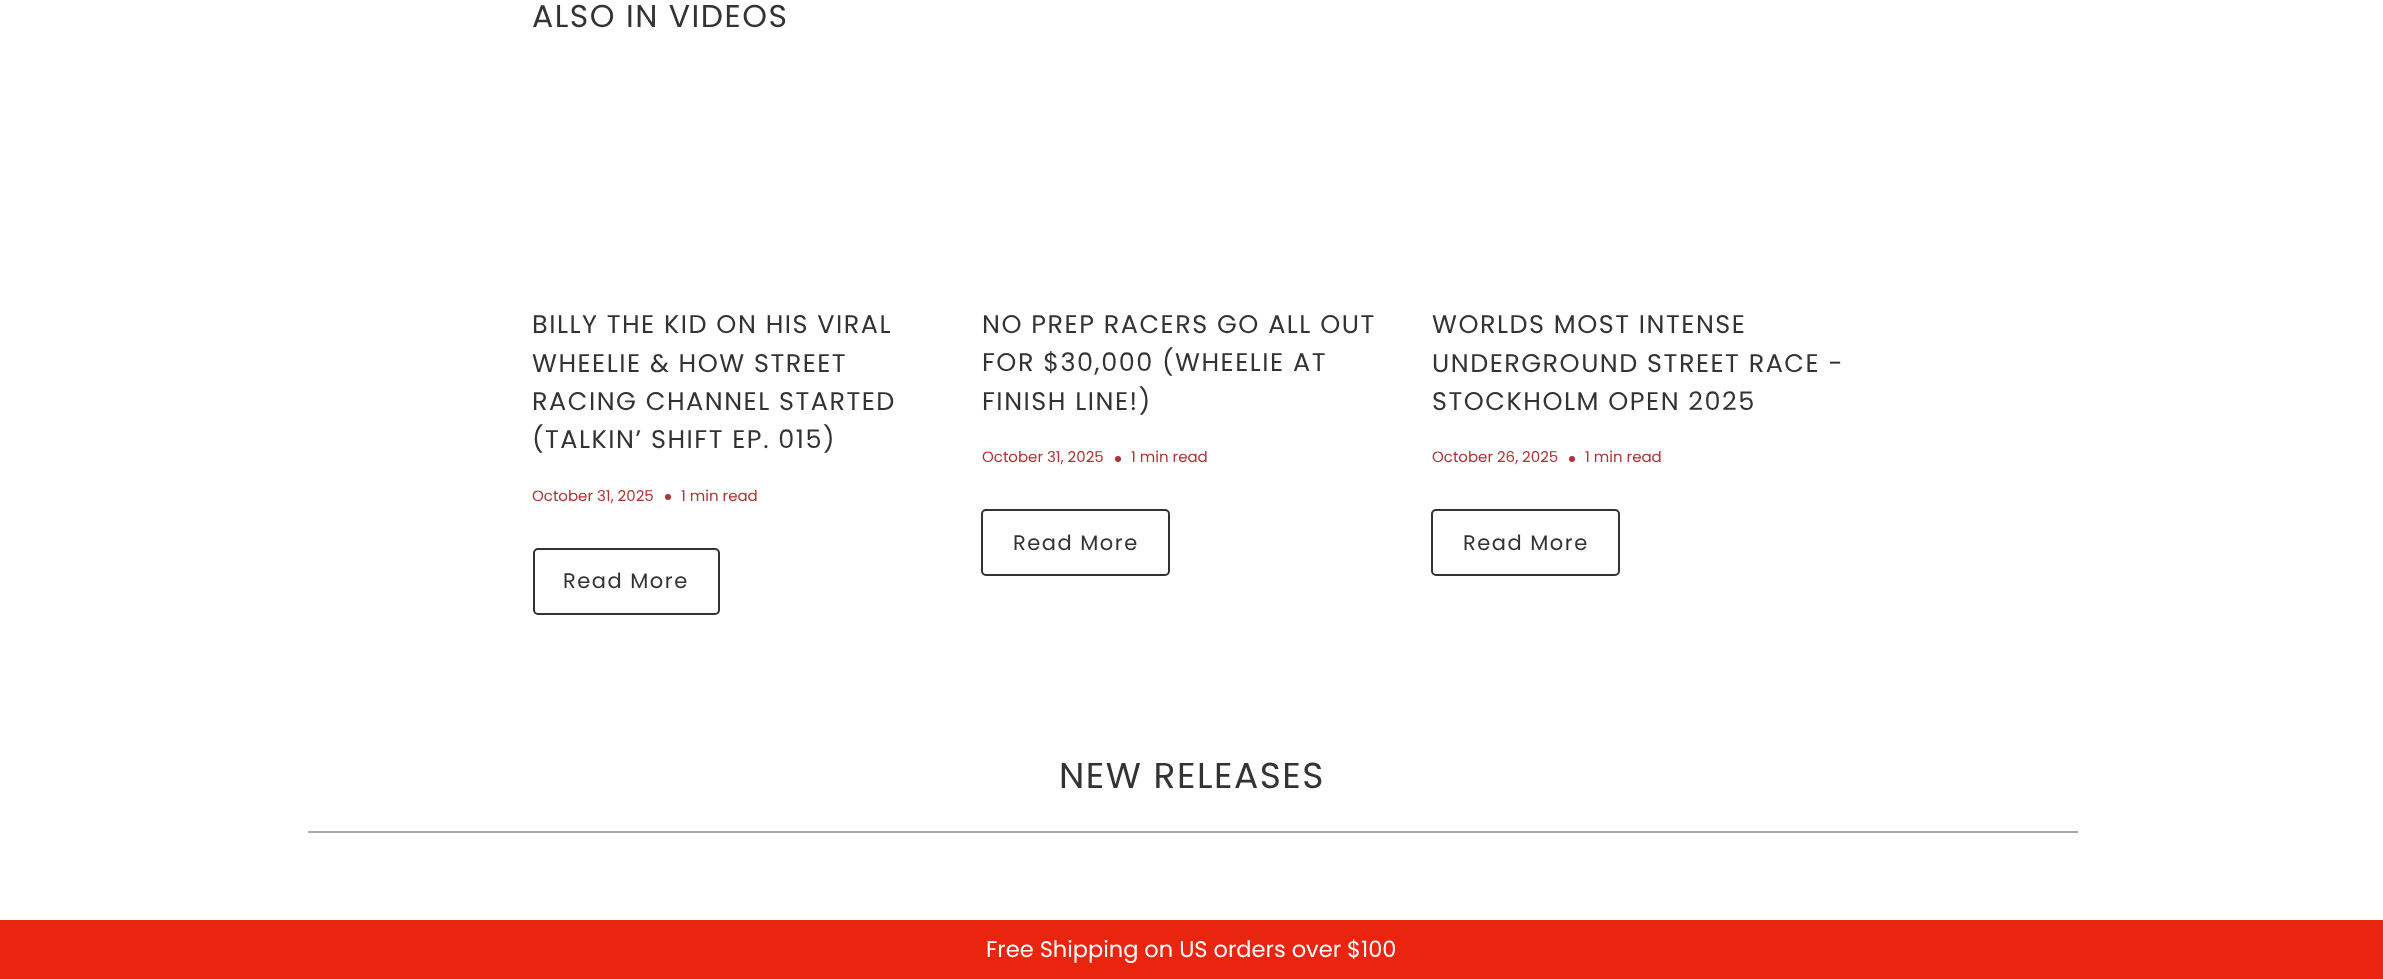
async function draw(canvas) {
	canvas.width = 2383;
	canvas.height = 979;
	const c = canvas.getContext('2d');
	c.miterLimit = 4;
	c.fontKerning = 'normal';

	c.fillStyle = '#fff';
	c.fillRect(0, 0, 2383, 979);
	c.letterSpacing = '1.5px';
	c.font = '31.5px Poppins';
	c.fillStyle = '#333';
	c.fillText('ALSO IN VIDEOS', 532, 27);
	c.font = '25.5px Poppins';
	for (const [text, x, y] of [
		['BILLY THE KID ON HIS VIRAL', 532, 333],
		['WHEELIE & HOW STREET', 532, 372],
		['RACING CHANNEL STARTED', 532, 410],
		['(TALKIN’ SHIFT EP. 015)', 532, 448],
	]) {
		c.fillText(text, x, y);
	}
	c.letterSpacing = '0px';
	c.font = '15px Poppins';
	c.fillStyle = '#ae3333';
	c.fillText('October 31, 2025', 532, 501);
	c.beginPath();
	c.arc(668, 497, 3, 0, 2 * Math.PI);
	c.fill();
	c.fillText('1 min read', 681, 501);
	c.beginPath();
	c.roundRect(534, 549, 185, 65, 4);
	c.strokeStyle = '#333';
	c.lineWidth = 2;
	c.stroke();
	c.letterSpacing = '1.5px';
	c.font = '21px Poppins';
	c.fillStyle = '#333';
	c.fillText('Read More', 563, 588);
	c.font = '25.5px Poppins';
	for (const [text, x, y] of [
		['NO PREP RACERS GO ALL OUT', 982, 333],
		['FOR $30,000 (WHEELIE AT', 982, 371],
		['FINISH LINE!)', 982, 410],
	]) {
		c.fillText(text, x, y);
	}
	c.letterSpacing = '0px';
	c.font = '15px Poppins';
	c.fillStyle = '#ae3333';
	c.fillText('October 31, 2025', 982, 462);
	c.beginPath();
	c.arc(1118, 459, 3, 0, 2 * Math.PI);
	c.fill();
	c.fillText('1 min read', 1131, 462);
	c.beginPath();
	c.roundRect(982, 510, 187, 65, 4);
	c.stroke();
	c.letterSpacing = '1.5px';
	c.font = '21px Poppins';
	c.fillStyle = '#333';
	c.fillText('Read More', 1013, 550);
	c.font = '25.5px Poppins';
	for (const [text, x, y] of [
		['WORLDS MOST INTENSE', 1432, 333],
		['UNDERGROUND STREET RACE -', 1432, 372],
		['STOCKHOLM OPEN 2025', 1432, 410],
	]) {
		c.fillText(text, x, y);
	}
	c.letterSpacing = '0px';
	c.font = '15px Poppins';
	c.fillStyle = '#ae3333';
	c.fillText('October 26, 2025', 1432, 462);
	c.beginPath();
	c.arc(1572, 459, 3, 0, 2 * Math.PI);
	c.fill();
	c.fillText('1 min read', 1585, 462);
	c.beginPath();
	c.roundRect(1432, 510, 187, 65, 4);
	c.stroke();
	c.letterSpacing = '1.5px';
	c.font = '21px Poppins';
	c.fillStyle = '#333';
	c.fillText('Read More', 1463, 550);
	c.font = '36px Poppins';
	c.fillText('NEW RELEASES', 1059, 788);
	c.fillStyle = '#aaa';
	c.fillRect(308, 831, 1770, 2);
	c.fillStyle = '#e9240f';
	c.fillRect(0, 920, 2383, 59);
	c.letterSpacing = '0px';
	c.font = '22.5px Poppins';
	c.fillStyle = '#fff';
	c.fillText('Free Shipping on US orders over $100', 986, 957);
}

draw(document.querySelector('canvas'));
